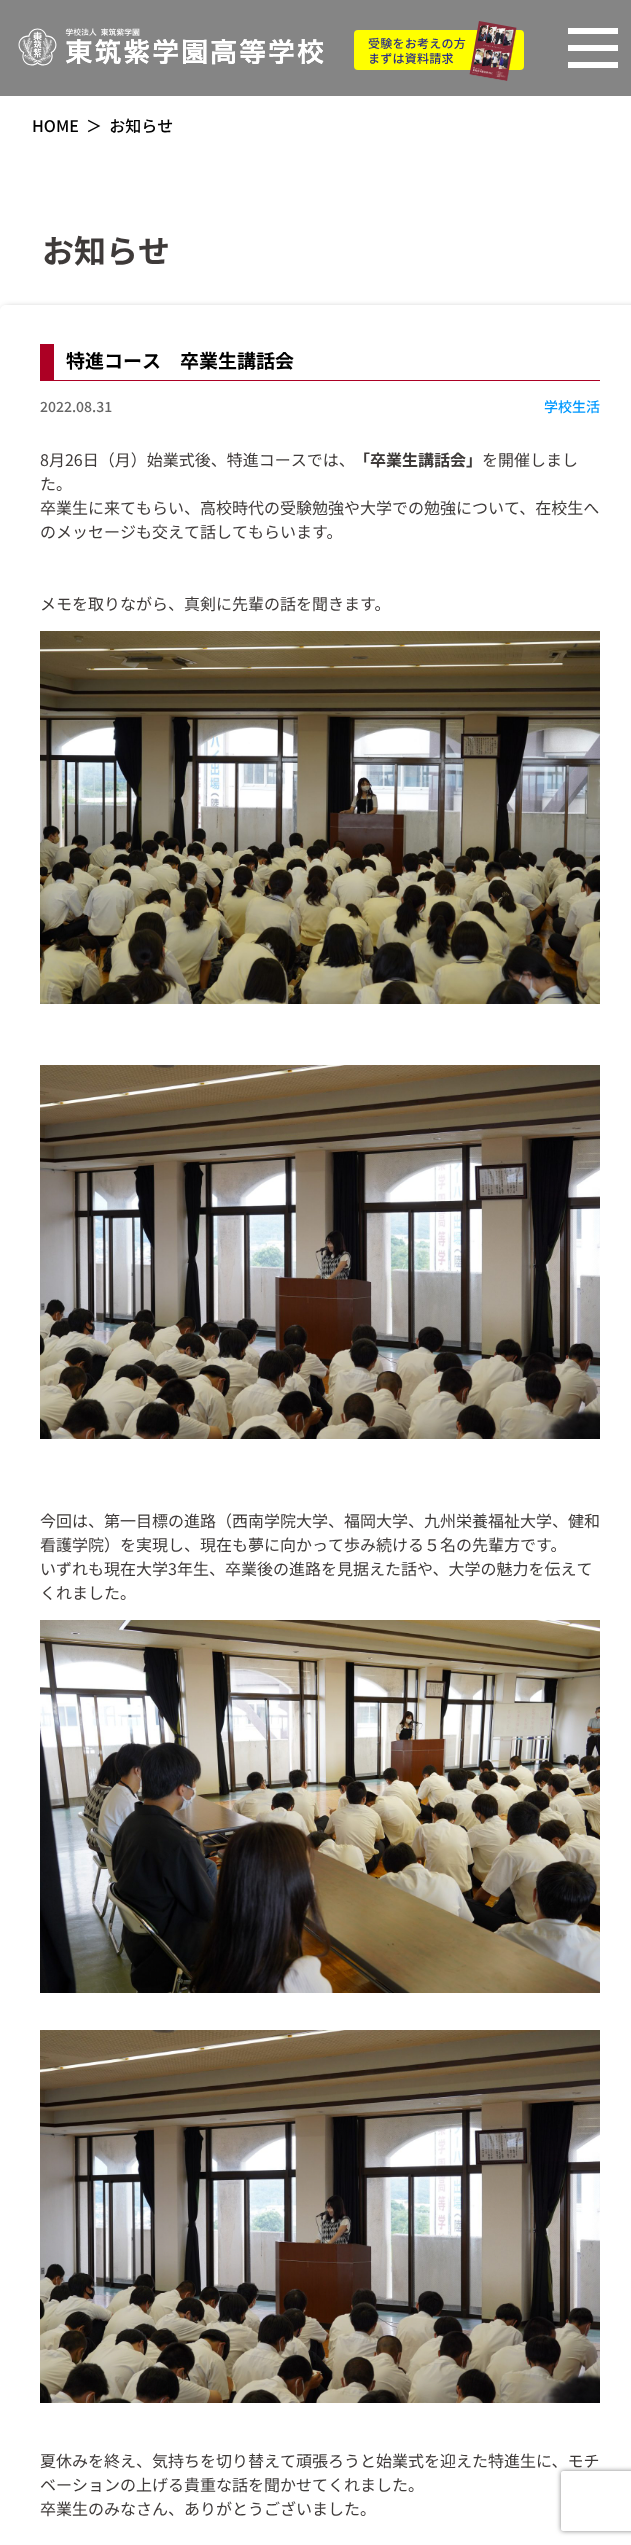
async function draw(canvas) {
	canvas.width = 631;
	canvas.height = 2545;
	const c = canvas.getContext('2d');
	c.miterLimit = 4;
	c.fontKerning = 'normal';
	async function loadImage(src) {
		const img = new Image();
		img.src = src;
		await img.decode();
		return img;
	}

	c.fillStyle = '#fff';
	c.fillRect(0, 0, 631, 2545);
	c.fillStyle = '#858585';
	c.fillRect(0, 0, 631, 96);
	c.drawImage(await loadImage('img1.png'), 18, 28, 306, 38);
	c.fillStyle = '#ff0';
	c.beginPath();
	c.roundRect(354, 30, 170, 40, 4);
	c.fill();
	c.letterSpacing = '0.25px';
	c.font = '500 12px Noto Sans JP';
	c.fillStyle = '#2e3185';
	c.fillText('受験をお考えの方', 368, 48);
	c.fillText('まずは資料請求', 368, 63);
	c.drawImage(await loadImage('img2.png'), 469, 21, 48, 60);
	for (const [x, y, w, h, color] of [
		[568, 28, 50, 6, '#fff'],
		[568, 45, 50, 6, '#fff'],
		[568, 62, 50, 6, '#fff'],
	]) {
		c.fillStyle = color;
		c.fillRect(x, y, w, h);
	}
	c.letterSpacing = '0px';
	c.font = '500 16px Noto Sans JP';
	c.fillStyle = '#000';
	c.fillText('HOME', 32, 132);
	c.fillText('＞  お知らせ', 86, 132);
	c.font = 'bold 32px Noto Sans JP';
	c.fillStyle = '#3e3a39';
	c.fillText('お知らせ', 42, 263);
	c.save();
	c.beginPath();
	c.moveTo(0, 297);
	c.lineTo(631, 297);
	c.lineTo(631, 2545);
	c.lineTo(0, 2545);
	c.closePath();
	c.moveTo(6, 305);
	c.lineTo(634, 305);
	c.bezierCurveTo(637.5, 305, 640, 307.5, 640, 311);
	c.lineTo(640, 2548);
	c.bezierCurveTo(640, 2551.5, 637.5, 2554, 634, 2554);
	c.lineTo(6, 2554);
	c.bezierCurveTo(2.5, 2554, 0, 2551.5, 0, 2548);
	c.lineTo(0, 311);
	c.bezierCurveTo(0, 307.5, 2.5, 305, 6, 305);
	c.closePath();
	c.clip('evenodd');
	c.fillStyle = '#0000004d';
	c.filter = 'blur(3px)';
	c.beginPath();
	c.roundRect(2, 307, 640, 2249, 6);
	c.fill();
	c.filter = 'none';
	c.restore();
	c.fillStyle = '#ac0024';
	c.fillRect(54, 380, 546, 1);
	c.fillRect(40, 344, 14, 37);
	c.font = 'bold 19px Noto Sans JP';
	c.fillStyle = '#000';
	c.fillText('特進コース　卒業生講話会', 66, 368);
	c.font = '500 14px Noto Sans JP';
	c.fillStyle = '#666';
	c.fillText('2022.08.31', 40, 412);
	c.fillStyle = '#09f';
	c.fillText('学校生活', 544, 412);
	c.font = '16px Noto Sans JP';
	c.fillStyle = '#3e3a39';
	c.fillText('8月26日（月）始業式後、特進コースでは、', 40, 466);
	c.font = 'bold 16px Noto Sans JP';
	c.fillText('「卒業生講話会」', 354, 466);
	c.font = '16px Noto Sans JP';
	for (const [text, x, y] of [
		['を開催しまし', 482, 466],
		['た。', 40, 490],
		['卒業生に来てもらい、高校時代の受験勉強や大学での勉強について、在校生へ', 40, 514],
		['のメッセージも交えて話してもらいます。', 40, 538],
		['メモを取りながら、真剣に先輩の話を聞きます。', 40, 610],
	]) {
		c.fillText(text, x, y);
	}
	c.drawImage(await loadImage('img3.png'), 40, 631, 560, 373);
	c.drawImage(await loadImage('img4.png'), 40, 1065, 560, 374);
	for (const [text, x, y] of [
		['今回は、第一目標の進路（西南学院大学、福岡大学、九州栄養福祉大学、健和', 40, 1527],
		['看護学院）を実現し、現在も夢に向かって歩み続ける５名の先輩方です。', 40, 1551],
		['いずれも現在大学3年生、卒業後の進路を見据えた話や、大学の魅力を伝えて', 40, 1575],
		['くれました。', 40, 1599],
	]) {
		c.fillText(text, x, y);
	}
	c.drawImage(await loadImage('img5.png'), 40, 1620, 560, 373);
	c.drawImage(await loadImage('img6.png'), 40, 2030, 560, 373);
	for (const [text, x, y] of [
		['夏休みを終え、気持ちを切り替えて頑張ろうと始業式を迎えた特進生に、モチ', 40, 2467],
		['ベーションの上げる貴重な話を聞かせてくれました。', 40, 2491],
		['卒業生のみなさん、ありがとうございました。', 40, 2515],
	]) {
		c.fillText(text, x, y);
	}
	c.save();
	c.beginPath();
	c.moveTo(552, 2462);
	c.lineTo(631, 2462);
	c.lineTo(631, 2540);
	c.lineTo(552, 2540);
	c.closePath();
	c.moveTo(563, 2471);
	c.lineTo(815, 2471);
	c.bezierCurveTo(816, 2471, 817, 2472, 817, 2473);
	c.lineTo(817, 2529);
	c.bezierCurveTo(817, 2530, 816, 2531, 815, 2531);
	c.lineTo(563, 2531);
	c.bezierCurveTo(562, 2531, 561, 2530, 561, 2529);
	c.lineTo(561, 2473);
	c.bezierCurveTo(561, 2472, 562, 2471, 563, 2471);
	c.closePath();
	c.clip('evenodd');
	c.fillStyle = '#808080';
	c.filter = 'blur(2.5px)';
	c.beginPath();
	c.roundRect(561, 2471, 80, 60, 2);
	c.fill();
	c.filter = 'none';
	c.restore();
}

draw(document.querySelector('canvas'));
